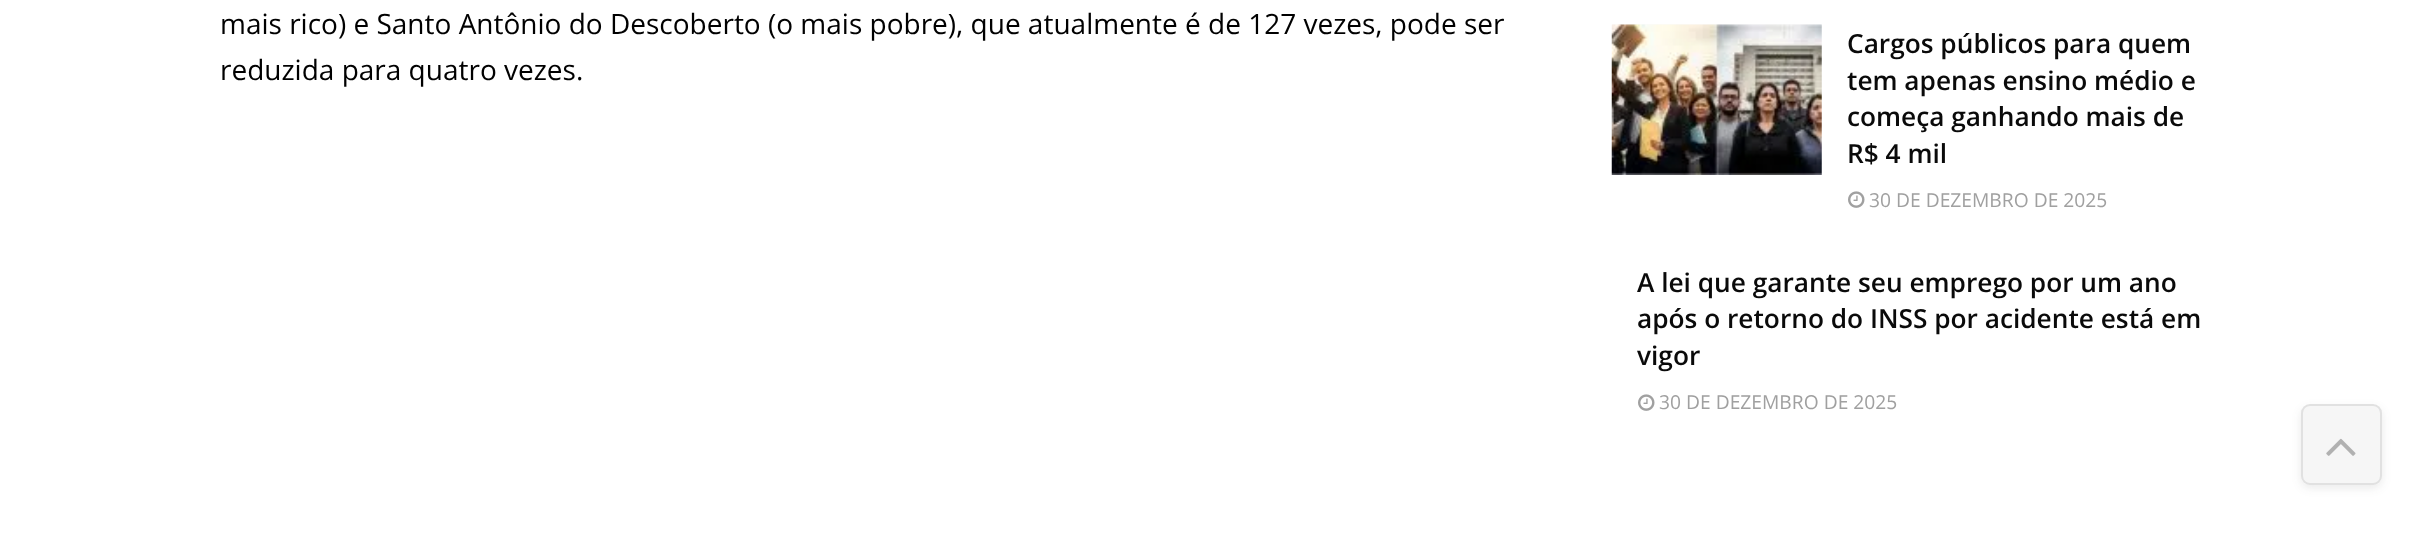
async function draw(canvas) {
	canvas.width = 2433;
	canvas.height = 537;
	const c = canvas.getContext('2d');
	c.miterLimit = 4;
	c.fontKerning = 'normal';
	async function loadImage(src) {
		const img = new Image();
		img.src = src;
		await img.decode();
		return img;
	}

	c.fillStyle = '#fff';
	c.fillRect(0, 0, 2433, 537);
	c.font = '28px Open Sans';
	c.fillStyle = '#000';
	c.fillText('mais rico) e Santo Antônio do Descoberto (o mais pobre), que atualmente é de 127 vezes, pode ser', 220, 34);
	c.fillText('reduzida para quatro vezes.', 220, 80);
	c.fillStyle = '#fbfbfb';
	c.fillRect(1612, 24, 209, 1);
	c.drawImage(await loadImage('img1.png'), 1611, 24, 211, 151);
	c.font = '600 26.25px Open Sans';
	c.fillStyle = '#0a0a0a';
	for (const [text, x, y] of [
		['Cargos públicos para quem', 1847, 53],
		['tem apenas ensino médio e', 1847, 90],
		['começa ganhando mais de', 1847, 126],
		['R$ 4 mil', 1847, 163],
	]) {
		c.fillText(text, x, y);
	}
	c.drawImage(await loadImage('img2.png'), 1848, 191, 17, 17);
	c.font = '19.25px Open Sans';
	c.fillStyle = '#a0a0a0';
	c.fillText('30 DE DEZEMBRO DE 2025', 1869, 207);
	c.font = '600 26.25px Open Sans';
	c.fillStyle = '#0a0a0a';
	for (const [text, x, y] of [
		['A lei que garante seu emprego por um ano', 1637, 292],
		['após o retorno do INSS por acidente está em', 1637, 328],
		['vigor', 1637, 365],
	]) {
		c.fillText(text, x, y);
	}
	c.drawImage(await loadImage('img2.png'), 1638, 394, 17, 17);
	c.font = '19.25px Open Sans';
	c.fillStyle = '#a0a0a0';
	c.fillText('30 DE DEZEMBRO DE 2025', 1659, 409);
	c.save();
	c.beginPath();
	c.moveTo(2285, 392);
	c.lineTo(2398, 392);
	c.lineTo(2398, 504);
	c.lineTo(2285, 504);
	c.closePath();
	c.moveTo(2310, 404);
	c.lineTo(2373, 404);
	c.bezierCurveTo(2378, 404, 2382, 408, 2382, 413);
	c.lineTo(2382, 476);
	c.bezierCurveTo(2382, 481, 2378, 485, 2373, 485);
	c.lineTo(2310, 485);
	c.bezierCurveTo(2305, 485, 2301, 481, 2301, 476);
	c.lineTo(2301, 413);
	c.bezierCurveTo(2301, 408, 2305, 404, 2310, 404);
	c.closePath();
	c.clip('evenodd');
	c.fillStyle = '#3333331a';
	c.filter = 'blur(5px)';
	c.beginPath();
	c.roundRect(2301, 408, 81, 80, 9);
	c.fill();
	c.filter = 'none';
	c.restore();
	c.fillStyle = '#c3c3c326';
	c.beginPath();
	c.roundRect(2301, 404, 81, 81, 9);
	c.fill();
	c.beginPath();
	c.roundRect(2302, 405, 79, 79, 8);
	c.strokeStyle = '#3333331c';
	c.lineWidth = 2;
	c.stroke();
	c.drawImage(await loadImage('img3.png'), 2326, 438, 30, 18);
}

draw(document.querySelector('canvas'));
